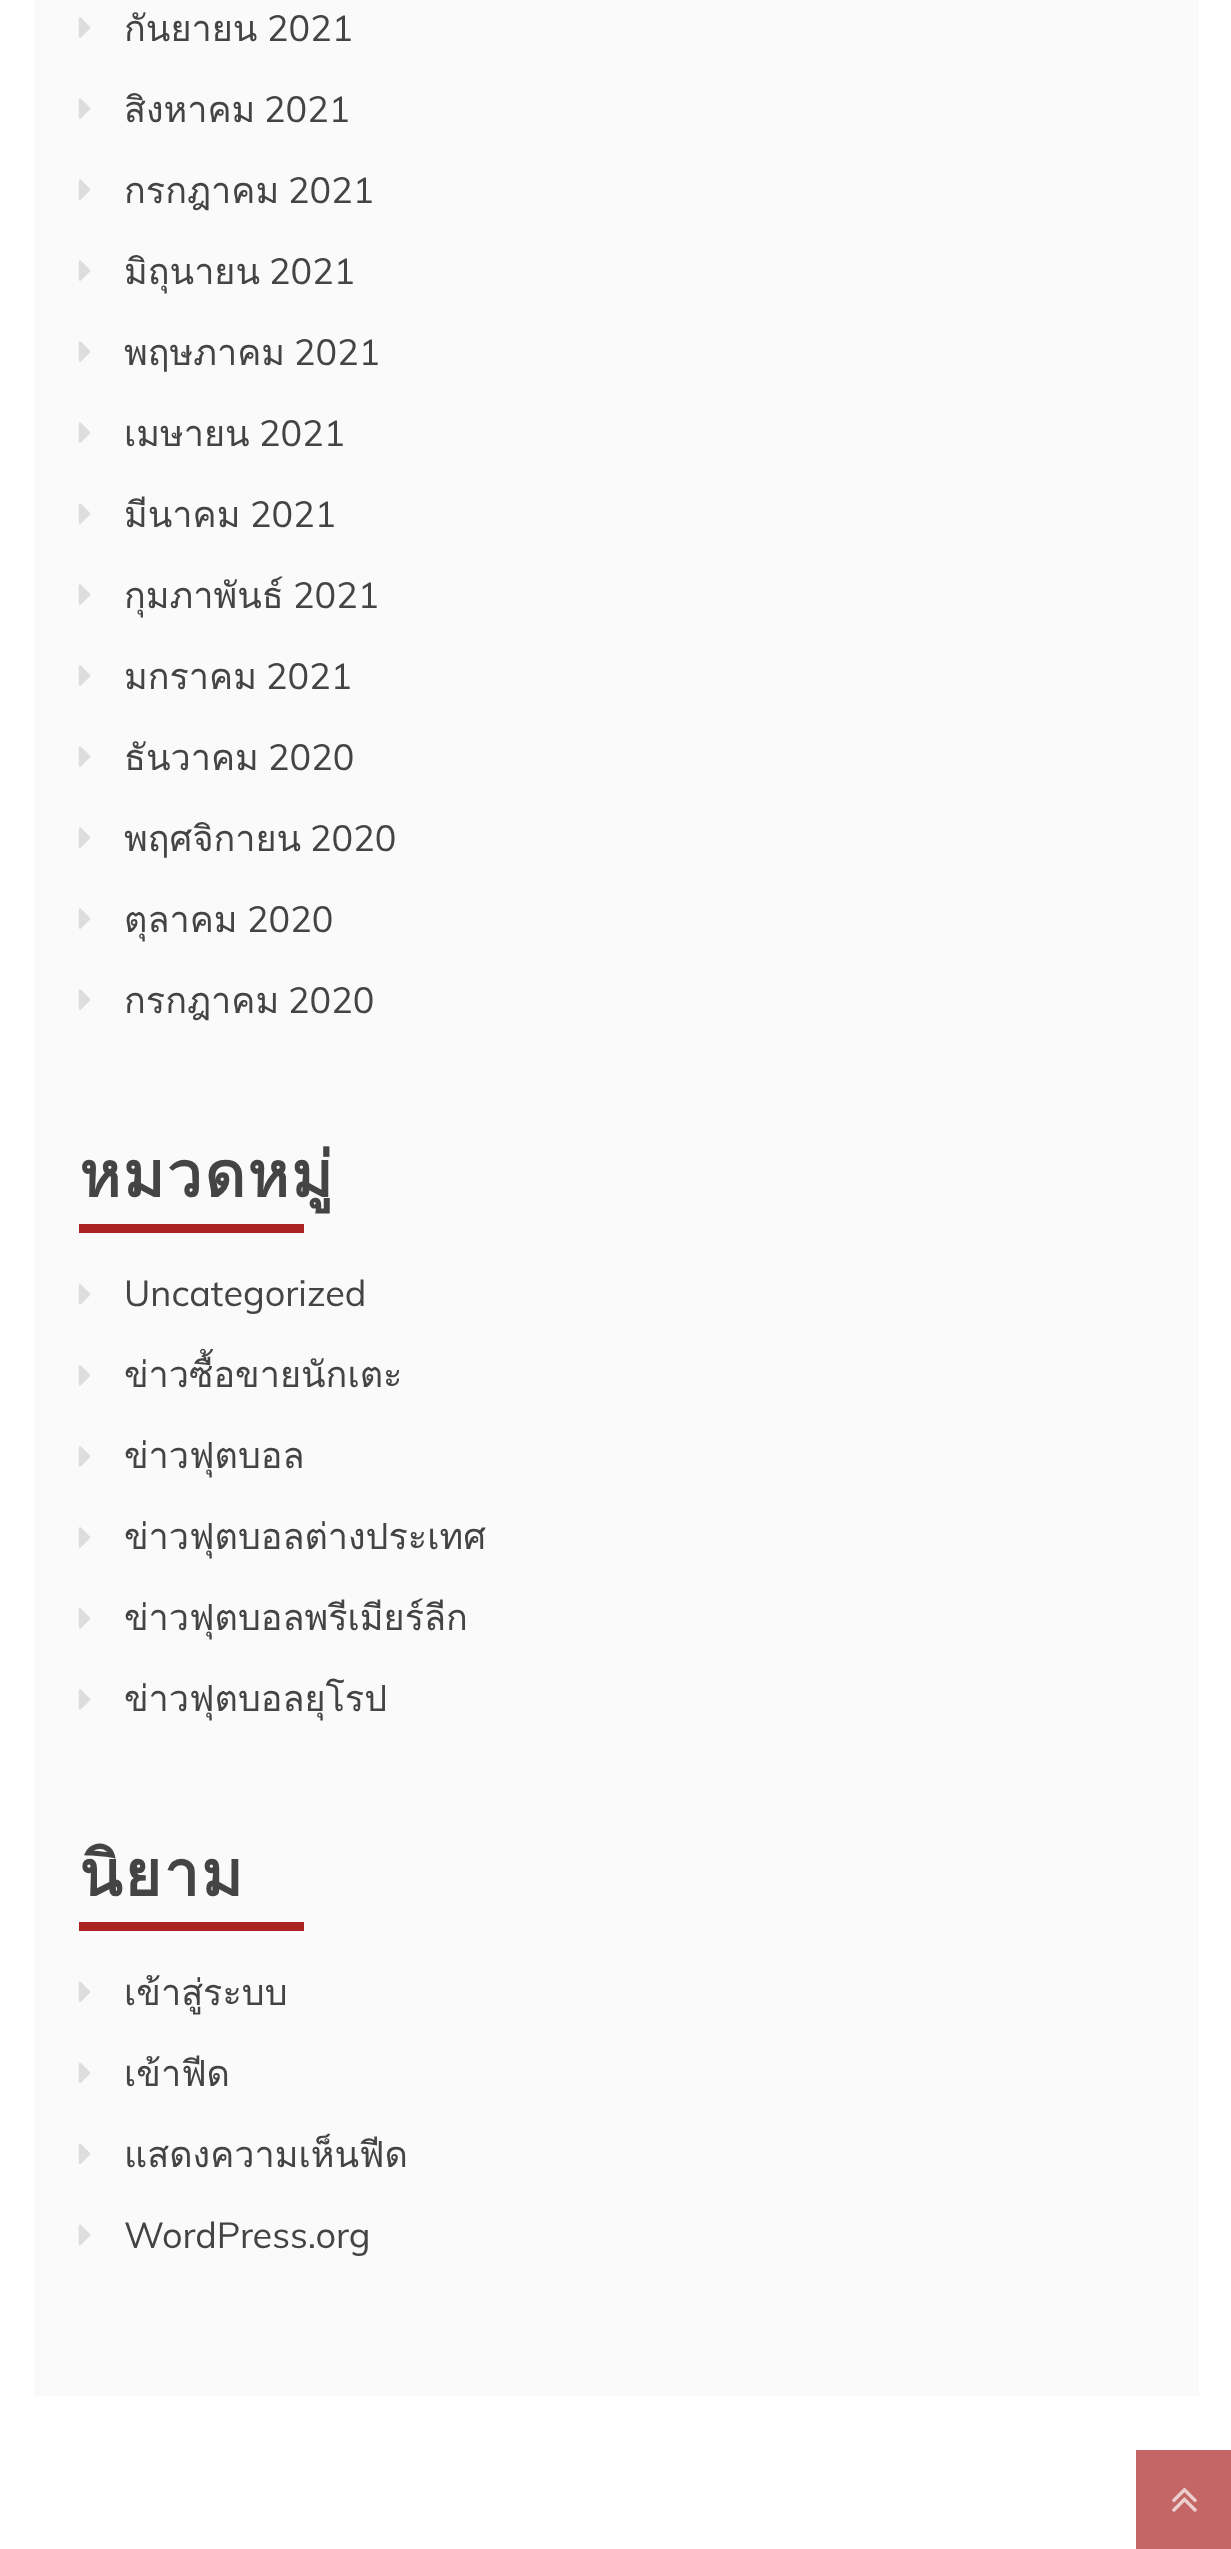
async function draw(canvas) {
	canvas.width = 1231;
	canvas.height = 2549;
	const c = canvas.getContext('2d');
	c.miterLimit = 4;
	c.fontKerning = 'normal';
	async function loadImage(src) {
		const img = new Image();
		img.src = src;
		await img.decode();
		return img;
	}

	c.fillStyle = '#fff';
	c.fillRect(0, 0, 1231, 2549);
	c.fillStyle = '#fafafa';
	c.fillRect(34, 0, 1165, 2396);
	c.drawImage(await loadImage('img1.png'), 78, 17, 13, 21);
	c.font = '36px Loma';
	c.fillStyle = '#444';
	c.fillText('กันยายน', 124, 41);
	c.font = '36px Muli';
	c.fillText('2021', 267, 41);
	c.drawImage(await loadImage('img1.png'), 78, 98, 13, 21);
	c.font = '36px Loma';
	c.fillText('สิงหาคม', 124, 122);
	c.font = '36px Muli';
	c.fillText('2021', 264, 122);
	c.drawImage(await loadImage('img1.png'), 78, 179, 13, 21);
	c.font = '36px Loma';
	c.fillText('กรกฎาคม', 124, 203);
	c.font = '36px Muli';
	c.fillText('2021', 288, 203);
	c.drawImage(await loadImage('img1.png'), 78, 260, 13, 21);
	c.font = '36px Loma';
	c.fillText('มิถุนายน', 124, 284);
	c.font = '36px Muli';
	c.fillText('2021', 269, 284);
	c.drawImage(await loadImage('img1.png'), 78, 341, 13, 21);
	c.font = '36px Loma';
	c.fillText('พฤษภาคม', 124, 365);
	c.font = '36px Muli';
	c.fillText('2021', 294, 365);
	c.drawImage(await loadImage('img1.png'), 78, 422, 13, 21);
	c.font = '36px Loma';
	c.fillText('เมษายน', 124, 446);
	c.font = '36px Muli';
	c.fillText('2021', 259, 446);
	c.drawImage(await loadImage('img1.png'), 78, 503, 13, 21);
	c.font = '36px Loma';
	c.fillText('มีนาคม', 124, 527);
	c.font = '36px Muli';
	c.fillText('2021', 250, 527);
	c.drawImage(await loadImage('img1.png'), 78, 584, 13, 21);
	c.font = '36px Loma';
	c.fillText('กุมภาพันธ์', 124, 608);
	c.font = '36px Muli';
	c.fillText('2021', 293, 608);
	c.drawImage(await loadImage('img1.png'), 78, 665, 13, 21);
	c.font = '36px Loma';
	c.fillText('มกราคม', 124, 689);
	c.font = '36px Muli';
	c.fillText('2021', 266, 689);
	c.drawImage(await loadImage('img1.png'), 78, 746, 13, 21);
	c.font = '36px Loma';
	c.fillText('ธันวาคม', 124, 770);
	c.font = '36px Muli';
	c.fillText('2020', 268, 770);
	c.drawImage(await loadImage('img1.png'), 78, 827, 13, 21);
	c.font = '36px Loma';
	c.fillText('พฤศจิกายน', 124, 851);
	c.font = '36px Muli';
	c.fillText('2020', 310, 851);
	c.drawImage(await loadImage('img1.png'), 78, 908, 13, 21);
	c.font = '36px Loma';
	c.fillText('ตุลาคม', 124, 932);
	c.font = '36px Muli';
	c.fillText('2020', 247, 932);
	c.drawImage(await loadImage('img1.png'), 78, 989, 13, 21);
	c.font = '36px Loma';
	c.fillText('กรกฎาคม', 124, 1013);
	c.font = '36px Muli';
	c.fillText('2020', 288, 1013);
	c.letterSpacing = '2.25px';
	c.font = 'bold 63px Loma';
	c.fillText('หมวดหมู่', 79, 1197);
	c.fillStyle = '#a22';
	c.fillRect(79, 1224, 225, 9);
	c.drawImage(await loadImage('img2.png'), 78, 1284, 13, 21);
	c.letterSpacing = '0px';
	c.font = '36px Muli';
	c.fillStyle = '#444';
	c.fillText('Uncategorized', 124, 1306);
	c.drawImage(await loadImage('img2.png'), 78, 1365, 13, 21);
	c.font = '36px Loma';
	c.fillText('ข่าวซื้อขายนักเตะ', 124, 1387);
	c.drawImage(await loadImage('img2.png'), 78, 1446, 13, 21);
	c.fillText('ข่าวฟุตบอล', 124, 1468);
	c.drawImage(await loadImage('img2.png'), 78, 1527, 13, 21);
	c.fillText('ข่าวฟุตบอลต่างประเทศ', 124, 1549);
	c.drawImage(await loadImage('img2.png'), 78, 1608, 13, 21);
	c.fillText('ข่าวฟุตบอลพรีเมียร์ลีก', 124, 1630);
	c.drawImage(await loadImage('img2.png'), 78, 1689, 13, 21);
	c.fillText('ข่าวฟุตบอลยุโรป', 124, 1711);
	c.letterSpacing = '2.25px';
	c.font = 'bold 63px Loma';
	c.fillText('นิยาม', 79, 1896);
	c.fillStyle = '#a22';
	c.fillRect(79, 1922, 225, 9);
	c.drawImage(await loadImage('img3.png'), 78, 1981, 13, 21);
	c.letterSpacing = '0px';
	c.font = '36px Loma';
	c.fillStyle = '#444';
	c.fillText('เข้าสู่ระบบ', 124, 2005);
	c.drawImage(await loadImage('img3.png'), 78, 2062, 13, 21);
	c.fillText('เข้าฟีด', 124, 2086);
	c.drawImage(await loadImage('img3.png'), 78, 2143, 13, 21);
	c.fillText('แสดงความเห็นฟีด', 124, 2167);
	c.drawImage(await loadImage('img3.png'), 78, 2224, 13, 21);
	c.font = '36px Muli';
	c.fillText('WordPress.org', 124, 2248);
	c.fillStyle = '#c46666';
	c.fillRect(1136, 2450, 95, 99);
	c.drawImage(await loadImage('img4.png'), 1172, 2487, 25, 25);
}

draw(document.querySelector('canvas'));
